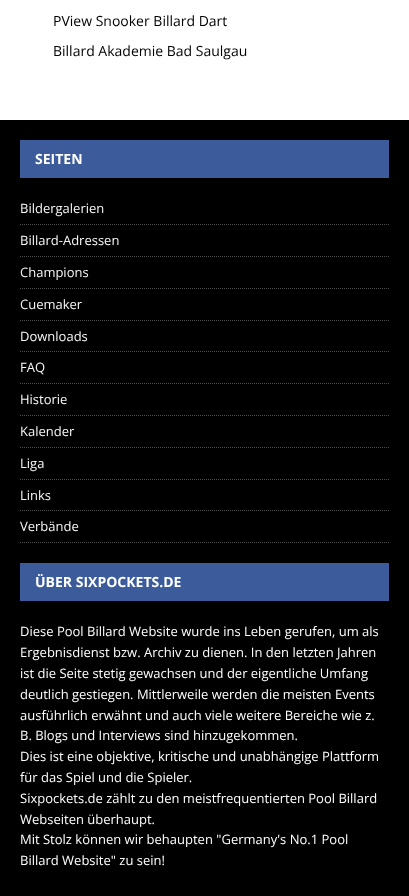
async function draw(canvas) {
	canvas.width = 409;
	canvas.height = 896;
	const c = canvas.getContext('2d');
	c.miterLimit = 4;
	c.fontKerning = 'normal';

	c.fillStyle = '#fff';
	c.fillRect(0, 0, 409, 896);
	c.font = '14px Open Sans';
	c.fillStyle = '#000';
	c.fillText('PView Snooker Billard Dart', 53, 26);
	c.fillText('Billard Akademie Bad Saulgau', 53, 56);
	c.fillRect(0, 120, 409, 776);
	c.fillStyle = '#3c5b9b';
	c.fillRect(20, 140, 369, 38);
	c.font = 'bold 14px Open Sans';
	c.fillStyle = '#fff';
	c.fillText('SEITEN', 35, 164);
	c.beginPath();
	c.moveTo(20, 224.5);
	c.lineTo(389, 224.5);
	c.strokeStyle = '#4d4d4d';
	c.setLineDash([1, 1]);
	c.stroke();
	c.font = '13px Open Sans';
	c.fillStyle = '#f7f7f7';
	c.fillText('Bildergalerien', 20, 213);
	c.beginPath();
	c.moveTo(20, 256.5);
	c.lineTo(389, 256.5);
	c.stroke();
	c.fillText('Billard-Adressen', 20, 245);
	c.beginPath();
	c.moveTo(20, 288.5);
	c.lineTo(389, 288.5);
	c.stroke();
	c.fillText('Champions', 20, 277);
	c.beginPath();
	c.moveTo(20, 320.5);
	c.lineTo(389, 320.5);
	c.stroke();
	c.fillText('Cuemaker', 20, 309);
	c.beginPath();
	c.moveTo(20, 351.5);
	c.lineTo(389, 351.5);
	c.stroke();
	c.fillText('Downloads', 20, 341);
	c.beginPath();
	c.moveTo(20, 383.5);
	c.lineTo(389, 383.5);
	c.stroke();
	c.fillText('FAQ', 20, 372);
	c.beginPath();
	c.moveTo(20, 415.5);
	c.lineTo(389, 415.5);
	c.stroke();
	c.fillText('Historie', 20, 404);
	c.beginPath();
	c.moveTo(20, 447.5);
	c.lineTo(389, 447.5);
	c.stroke();
	c.fillText('Kalender', 20, 436);
	c.beginPath();
	c.moveTo(20, 479.5);
	c.lineTo(389, 479.5);
	c.stroke();
	c.fillText('Liga', 20, 468);
	c.beginPath();
	c.moveTo(20, 510.5);
	c.lineTo(389, 510.5);
	c.stroke();
	c.fillText('Links', 20, 500);
	c.beginPath();
	c.moveTo(20, 542.5);
	c.lineTo(389, 542.5);
	c.stroke();
	c.fillText('Verbände', 20, 531);
	c.fillStyle = '#3c5b9b';
	c.fillRect(20, 563, 369, 38);
	c.font = 'bold 14px Open Sans';
	c.fillStyle = '#fff';
	c.fillText('ÜBER SIXPOCKETS.DE', 35, 587);
	c.font = '13px Open Sans';
	for (const [text, x, y] of [
		['Diese Pool Billard Website wurde ins Leben gerufen, um als', 20, 636],
		['Ergebnisdienst bzw. Archiv zu dienen. In den letzten Jahren', 20, 657],
		['ist die Seite stetig gewachsen und der eigentliche Umfang', 20, 678],
		['deutlich gestiegen. Mittlerweile werden die meisten Events', 20, 699],
		['ausführlich erwähnt und auch viele weitere Bereiche wie z.', 20, 720],
		['B. Blogs und Interviews sind hinzugekommen.', 20, 740],
		['Dies ist eine objektive, kritische und unabhängige Plattform', 20, 761],
		['für das Spiel und die Spieler.', 20, 782],
		['Sixpockets.de zählt zu den meistfrequentierten Pool Billard', 20, 803],
		['Webseiten überhaupt.', 20, 824],
		['Mit Stolz können wir behaupten "Germany\'s No.1 Pool', 20, 844],
		['Billard Website" zu sein!', 20, 865],
	]) {
		c.fillText(text, x, y);
	}
}

draw(document.querySelector('canvas'));
